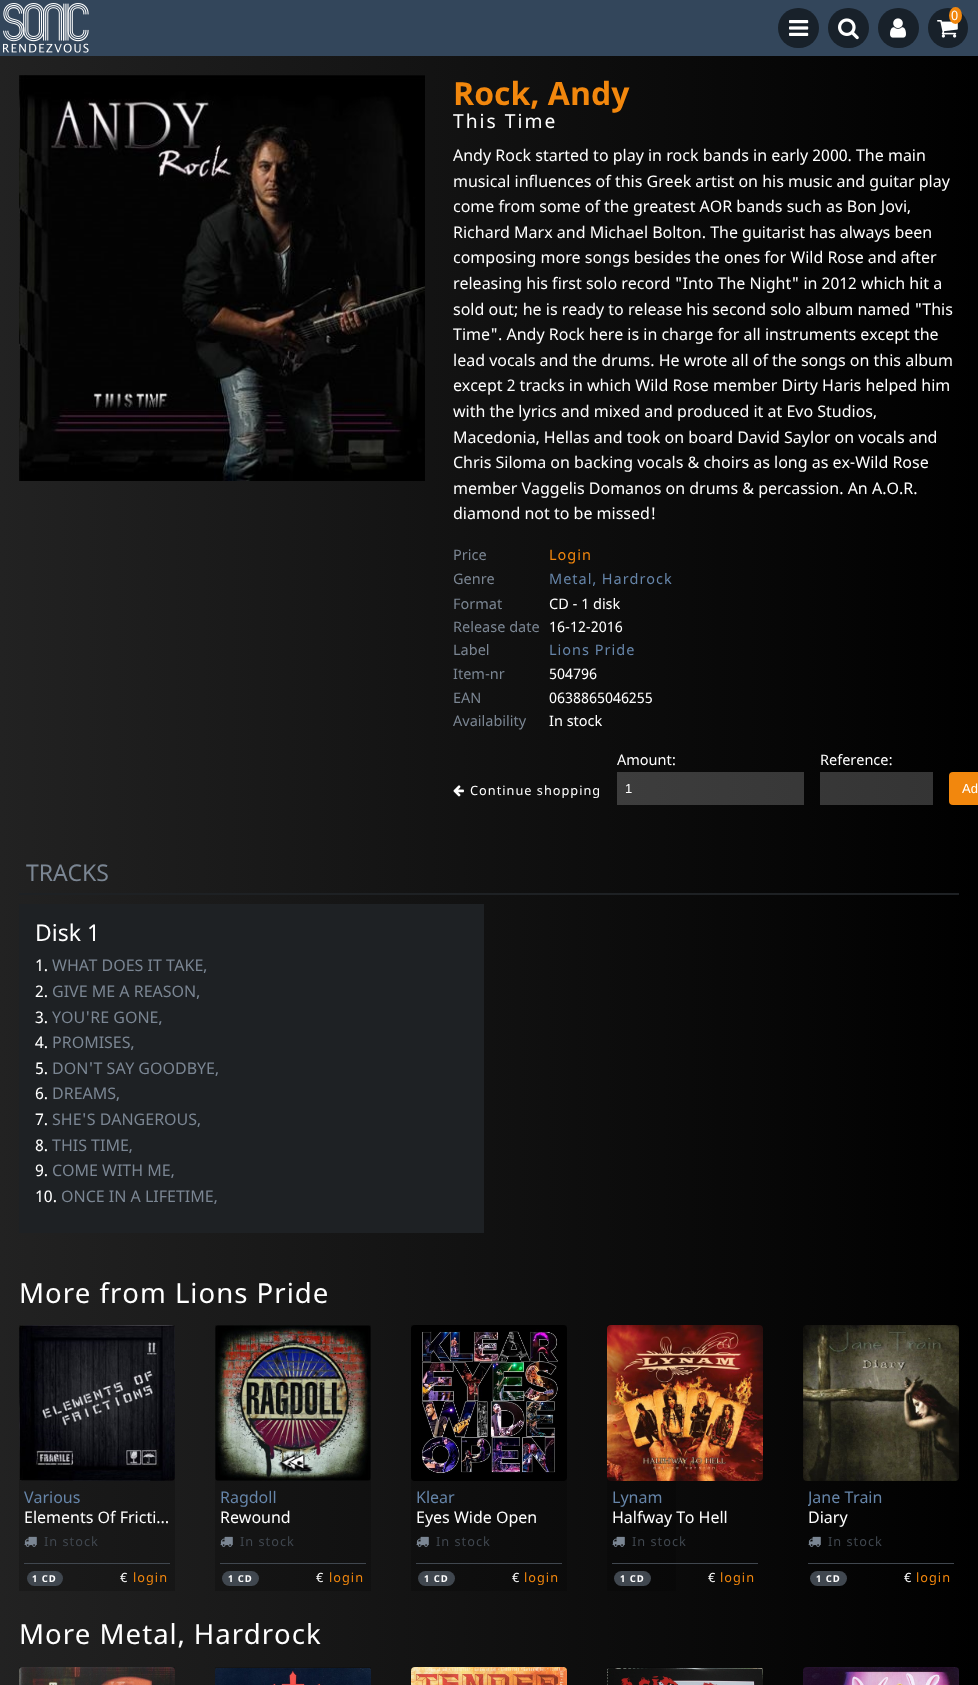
async function draw(canvas) {
	canvas.width = 978;
	canvas.height = 1685;
	const c = canvas.getContext('2d');
	c.miterLimit = 4;
	c.fontKerning = 'normal';
	async function loadImage(src) {
		const img = new Image();
		img.src = src;
		await img.decode();
		return img;
	}
	let gradient;

	c.fillStyle = '#fff';
	c.fillRect(0, 0, 978, 1685);
	gradient = c.createLinearGradient(0, 843, 978, 843);
	gradient.addColorStop(0, '#222');
	gradient.addColorStop(1, '#000');
	c.fillStyle = gradient;
	c.fillRect(0, 56, 978, 1629);
	gradient = c.createLinearGradient(0, 843, 978, 843);
	gradient.addColorStop(0, '#1b1b1b');
	gradient.addColorStop(1, '#000');
	c.fillStyle = gradient;
	c.fillRect(607, 1667, 69, 4);
	c.fillRect(411, 1667, 156, 4);
	c.fillRect(215, 1667, 156, 4);
	c.fillRect(19, 1667, 156, 4);
	c.fillRect(607, 1325, 69, 266);
	c.fillRect(411, 1325, 156, 266);
	c.fillRect(215, 1325, 156, 266);
	c.fillRect(19, 1325, 156, 266);
	gradient = c.createLinearGradient(0, 843, 978, 843);
	gradient.addColorStop(0, '#4e4e4e');
	gradient.addColorStop(1, '#333');
	c.fillStyle = gradient;
	c.fillRect(820, 772, 113, 33);
	c.fillRect(617, 772, 187, 33);
	c.fillStyle = '#33465b';
	c.fillRect(0, 0, 978, 56);
	c.drawImage(await loadImage('img1.png'), 3, 3, 86, 50);
	c.fillStyle = '#18212a';
	c.beginPath();
	c.roundRect(778, 8, 41, 40, 20);
	c.fill();
	c.drawImage(await loadImage('img2.png'), 789, 20, 20, 16);
	c.beginPath();
	c.roundRect(828, 8, 41, 40, 20);
	c.fill();
	c.drawImage(await loadImage('img3.png'), 838, 18, 21, 22);
	c.beginPath();
	c.roundRect(878, 8, 41, 40, 20);
	c.fill();
	c.drawImage(await loadImage('img4.png'), 890, 18, 16, 20);
	c.beginPath();
	c.arc(948, 28, 20, 0, 2 * Math.PI);
	c.fill();
	c.drawImage(await loadImage('img5.png'), 937, 20, 21, 18);
	c.fillStyle = '#f2870d';
	c.beginPath();
	c.ellipse(955.5, 15.5, 6.5, 8.5, 0, 0, 2 * Math.PI);
	c.fill();
	c.letterSpacing = '1px';
	c.font = '13px Noto Sans';
	c.fillStyle = '#fff';
	c.fillText('0', 951, 20);
	c.drawImage(await loadImage('img6.png'), 19, 75, 406, 406);
	c.letterSpacing = '0px';
	c.font = 'bold 32px Noto Sans';
	c.fillStyle = '#f2870d';
	c.fillText('Rock, Andy', 453, 105);
	c.letterSpacing = '2px';
	c.font = '19.25px Noto Sans';
	c.fillStyle = '#fff';
	c.fillText('This Time', 453, 128);
	c.letterSpacing = '0px';
	c.font = '16px Noto Sans';
	for (const [text, x, y] of [
		['Andy Rock started to play in rock bands in early 2000. The main', 453, 161],
		['musical influences of this Greek artist on his music and guitar play', 453, 187],
		['come from some of the greatest AOR bands such as Bon Jovi,', 453, 212],
		['Richard Marx and Michael Bolton. The guitarist has always been', 453, 238],
		['composing more songs besides the ones for Wild Rose and after', 453, 263],
		['releasing his first solo record "Into The Night" in 2012 which hit a', 453, 289],
		['sold out; he is ready to release his second solo album named "This', 453, 315],
		['Time". Andy Rock here is in charge for all instruments except the', 453, 340],
		['lead vocals and the drums. He wrote all of the songs on this album', 453, 366],
		['except 2 tracks in which Wild Rose member Dirty Haris helped him', 453, 391],
		['with the lyrics and mixed and produced it at Evo Studios,', 453, 417],
		['Macedonia, Hellas and took on board David Saylor on vocals and', 453, 443],
		['Chris Siloma on backing vocals & choirs as long as ex-Wild Rose', 453, 468],
		['member Vaggelis Domanos on drums & percassion. An A.O.R.', 453, 494],
		['diamond not to be missed!', 453, 519],
	]) {
		c.fillText(text, x, y);
	}
	c.font = '14.5px Noto Sans';
	c.fillStyle = '#7b8693';
	c.fillText('Price', 453, 560);
	c.letterSpacing = '1px';
	c.fillStyle = '#f2870d';
	c.fillText('Login', 549, 560);
	c.letterSpacing = '0px';
	c.fillStyle = '#7b8693';
	c.fillText('Genre', 453, 584);
	c.letterSpacing = '1px';
	c.fillStyle = '#6685a9';
	c.fillText('Metal, Hardrock', 549, 584);
	c.letterSpacing = '0px';
	c.fillStyle = '#7b8693';
	c.fillText('Format', 453, 609);
	c.fillStyle = '#fff';
	c.fillText('CD - 1 disk', 549, 609);
	c.fillStyle = '#7b8693';
	c.fillText('Release date', 453, 632);
	c.fillStyle = '#fff';
	c.fillText('16-12-2016', 549, 632);
	c.fillStyle = '#7b8693';
	c.fillText('Label', 453, 655);
	c.letterSpacing = '1px';
	c.fillStyle = '#6685a9';
	c.fillText('Lions Pride', 549, 655);
	c.letterSpacing = '0px';
	c.fillStyle = '#7b8693';
	c.fillText('Item-nr', 453, 679);
	c.fillStyle = '#fff';
	c.fillText('504796', 549, 679);
	c.fillStyle = '#7b8693';
	c.fillText('EAN', 453, 703);
	c.fillStyle = '#fff';
	c.fillText('0638865046255', 549, 703);
	c.fillStyle = '#7b8693';
	c.fillText('Availability', 453, 726);
	c.fillStyle = '#fff';
	c.fillText('In stock', 549, 726);
	c.fillText('Amount:', 617, 765);
	c.font = '13px Liberation Sans';
	c.fillText('1', 625, 793);
	c.font = '14.5px Noto Sans';
	c.fillText('Reference:', 820, 765);
	c.drawImage(await loadImage('img7.png'), 453, 785, 11, 12);
	c.letterSpacing = '1px';
	c.font = '12.75px Noto Sans';
	c.fillText('Continue shopping', 470, 795);
	c.fillStyle = '#f2870d';
	c.beginPath();
	c.roundRect(949, 772, 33, 33, 4);
	c.fill();
	c.letterSpacing = '0px';
	c.font = '13px Liberation Sans';
	c.fillStyle = '#fff';
	c.fillText('Ad', 962, 793);
	c.fillStyle = '#1e2124';
	c.fillRect(19, 893, 940, 2);
	c.font = '23px Noto Sans';
	c.fillStyle = '#7b8693';
	c.fillText('TRACKS', 26, 881);
	c.fillStyle = '#1e2124';
	c.fillRect(19, 904, 465, 329);
	c.fillStyle = '#fff';
	c.fillText('Disk 1', 35, 941);
	c.font = '16px Noto Sans';
	c.fillText('1.', 35, 971);
	c.fillStyle = '#7b8693';
	c.fillText('WHAT DOES IT TAKE,', 52, 971);
	c.fillStyle = '#fff';
	c.fillText('2.', 35, 997);
	c.fillStyle = '#7b8693';
	c.fillText('GIVE ME A REASON,', 52, 997);
	c.fillStyle = '#fff';
	c.fillText('3.', 35, 1023);
	c.fillStyle = '#7b8693';
	c.fillText('YOU\'RE GONE,', 52, 1023);
	c.fillStyle = '#fff';
	c.fillText('4.', 35, 1048);
	c.fillStyle = '#7b8693';
	c.fillText('PROMISES,', 52, 1048);
	c.fillStyle = '#fff';
	c.fillText('5.', 35, 1074);
	c.fillStyle = '#7b8693';
	c.fillText('DON\'T SAY GOODBYE,', 52, 1074);
	c.fillStyle = '#fff';
	c.fillText('6.', 35, 1099);
	c.fillStyle = '#7b8693';
	c.fillText('DREAMS,', 52, 1099);
	c.fillStyle = '#fff';
	c.fillText('7.', 35, 1125);
	c.fillStyle = '#7b8693';
	c.fillText('SHE\'S DANGEROUS,', 52, 1125);
	c.fillStyle = '#fff';
	c.fillText('8.', 35, 1151);
	c.fillStyle = '#7b8693';
	c.fillText('THIS TIME,', 52, 1151);
	c.fillStyle = '#fff';
	c.fillText('9.', 35, 1176);
	c.fillStyle = '#7b8693';
	c.fillText('COME WITH ME,', 52, 1176);
	c.fillStyle = '#fff';
	c.fillText('10.', 35, 1202);
	c.fillStyle = '#7b8693';
	c.fillText('ONCE IN A LIFETIME,', 61, 1202);
	c.letterSpacing = '1px';
	c.font = '27.6px Noto Sans';
	c.fillStyle = '#fff';
	c.fillText('More from Lions Pride', 19, 1303);
	c.drawImage(await loadImage('img8.png'), 19, 1325, 156, 156);
	c.letterSpacing = '0px';
	c.font = '16px Noto Sans';
	c.fillStyle = '#6685a9';
	c.fillText('Various', 24, 1503);
	c.fillStyle = '#fff';
	c.fillText('Elements Of Fricti…', 24, 1523);
	c.drawImage(await loadImage('img9.png'), 24, 1536, 13, 11);
	c.letterSpacing = '1px';
	c.font = '12.75px Noto Sans';
	c.fillStyle = '#40474f';
	c.fillText('In stock', 44, 1546);
	c.fillRect(24, 1563, 146, 1);
	c.beginPath();
	c.roundRect(27, 1571, 36, 15, 7.5);
	c.fill();
	c.font = 'bold 9.5px Noto Sans';
	c.fillStyle = '#fff';
	c.fillText('1 CD', 32, 1582);
	c.font = '12.75px Noto Sans';
	c.fillText('€', 120, 1582);
	c.fillStyle = '#f2870d';
	c.fillText('login', 133, 1582);
	c.drawImage(await loadImage('img10.png'), 215, 1325, 156, 156);
	c.letterSpacing = '0px';
	c.font = '16px Noto Sans';
	c.fillStyle = '#6685a9';
	c.fillText('Ragdoll', 220, 1503);
	c.fillStyle = '#fff';
	c.fillText('Rewound', 220, 1523);
	c.drawImage(await loadImage('img11.png'), 220, 1536, 13, 11);
	c.letterSpacing = '1px';
	c.font = '12.75px Noto Sans';
	c.fillStyle = '#40474f';
	c.fillText('In stock', 240, 1546);
	c.fillRect(220, 1563, 146, 1);
	c.beginPath();
	c.roundRect(222, 1571, 37, 15, 7.5);
	c.fill();
	c.font = 'bold 9.5px Noto Sans';
	c.fillStyle = '#fff';
	c.fillText('1 CD', 228, 1582);
	c.font = '12.75px Noto Sans';
	c.fillText('€', 316, 1582);
	c.fillStyle = '#f2870d';
	c.fillText('login', 329, 1582);
	c.drawImage(await loadImage('img12.png'), 411, 1325, 156, 156);
	c.letterSpacing = '0px';
	c.font = '16px Noto Sans';
	c.fillStyle = '#6685a9';
	c.fillText('Klear', 416, 1503);
	c.fillStyle = '#fff';
	c.fillText('Eyes Wide Open', 416, 1523);
	c.drawImage(await loadImage('img13.png'), 416, 1536, 13, 11);
	c.letterSpacing = '1px';
	c.font = '12.75px Noto Sans';
	c.fillStyle = '#40474f';
	c.fillText('In stock', 436, 1546);
	c.fillRect(416, 1563, 146, 1);
	c.beginPath();
	c.roundRect(418, 1571, 37, 15, 7.5);
	c.fill();
	c.font = 'bold 9.5px Noto Sans';
	c.fillStyle = '#fff';
	c.fillText('1 CD', 424, 1582);
	c.font = '12.75px Noto Sans';
	c.fillText('€', 512, 1582);
	c.fillStyle = '#f2870d';
	c.fillText('login', 524, 1582);
	c.drawImage(await loadImage('img14.png'), 607, 1325, 156, 156);
	c.letterSpacing = '0px';
	c.font = '16px Noto Sans';
	c.fillStyle = '#6685a9';
	c.fillText('Lynam', 612, 1503);
	c.fillStyle = '#fff';
	c.fillText('Halfway To Hell', 612, 1523);
	c.drawImage(await loadImage('img15.png'), 612, 1536, 13, 11);
	c.letterSpacing = '1px';
	c.font = '12.75px Noto Sans';
	c.fillStyle = '#40474f';
	c.fillText('In stock', 632, 1546);
	c.fillRect(612, 1563, 146, 1);
	c.beginPath();
	c.roundRect(614, 1571, 37, 15, 7.5);
	c.fill();
	c.font = 'bold 9.5px Noto Sans';
	c.fillStyle = '#fff';
	c.fillText('1 CD', 620, 1582);
	c.font = '12.75px Noto Sans';
	c.fillText('€', 708, 1582);
	c.fillStyle = '#f2870d';
	c.fillText('login', 720, 1582);
	c.drawImage(await loadImage('img16.png'), 803, 1325, 156, 156);
	c.save();
	c.beginPath();
	c.rect(808, 1489, 146, 19);
	c.clip();
	c.letterSpacing = '0px';
	c.font = '16px Noto Sans';
	c.fillStyle = '#6685a9';
	c.fillText('Jane Train', 808, 1503);
	c.restore();
	c.letterSpacing = '0px';
	c.font = '16px Noto Sans';
	c.fillStyle = '#fff';
	c.fillText('Diary', 808, 1523);
	c.drawImage(await loadImage('img17.png'), 808, 1536, 13, 11);
	c.letterSpacing = '1px';
	c.font = '12.75px Noto Sans';
	c.fillStyle = '#40474f';
	c.fillText('In stock', 828, 1546);
	c.fillRect(808, 1563, 146, 1);
	c.beginPath();
	c.roundRect(810, 1571, 37, 15, 7.5);
	c.fill();
	c.font = 'bold 9.5px Noto Sans';
	c.fillStyle = '#fff';
	c.fillText('1 CD', 816, 1582);
	c.font = '12.75px Noto Sans';
	c.fillText('€', 904, 1582);
	c.fillStyle = '#f2870d';
	c.fillText('login', 916, 1582);
	c.font = '27.6px Noto Sans';
	c.fillStyle = '#fff';
	c.fillText('More Metal, Hardrock', 19, 1644);
	c.drawImage(await loadImage('img18.png'), 19, 1667, 156, 18);
	c.drawImage(await loadImage('img19.png'), 215, 1668, 156, 17);
	c.drawImage(await loadImage('img20.png'), 411, 1667, 156, 18);
	c.drawImage(await loadImage('img21.png'), 607, 1668, 156, 17);
	c.drawImage(await loadImage('img22.png'), 803, 1667, 156, 18);
}

draw(document.querySelector('canvas'));
